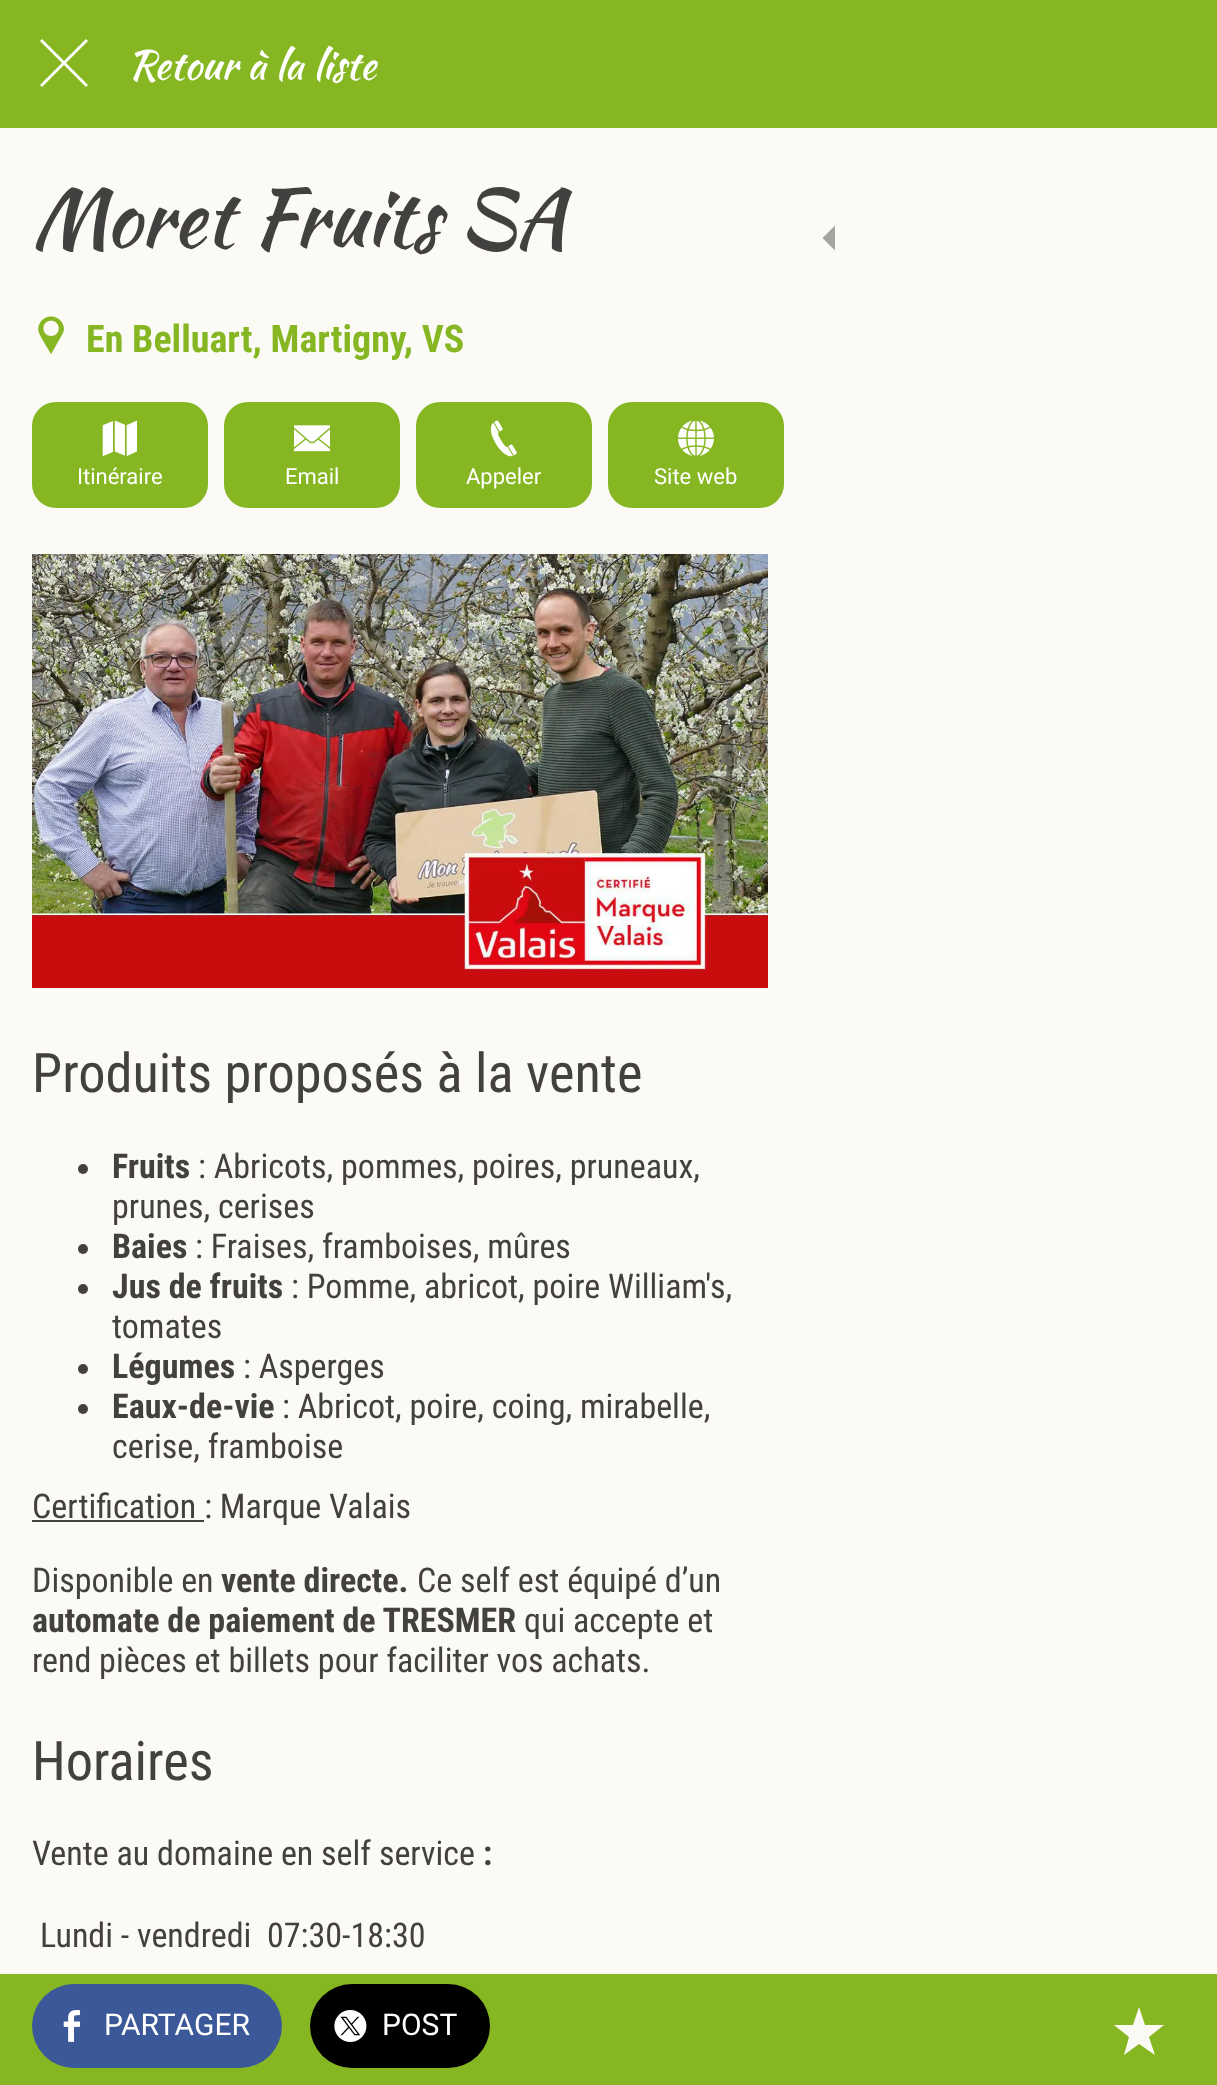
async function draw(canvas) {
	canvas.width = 1217;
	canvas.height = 2085;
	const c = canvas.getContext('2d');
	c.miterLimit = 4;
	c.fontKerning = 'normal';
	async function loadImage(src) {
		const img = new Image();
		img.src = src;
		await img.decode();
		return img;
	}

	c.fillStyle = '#fcfaf4';
	c.fillRect(0, 0, 1217, 2085);
	c.fillStyle = '#86b723';
	c.fillRect(0, 0, 1217, 128);
	c.fillStyle = '#fff';
	c.beginPath();
	c.moveTo(88, 41);
	c.lineTo(86, 39);
	c.lineTo(64, 61);
	c.lineTo(42, 39);
	c.lineTo(40, 41);
	c.lineTo(62, 63);
	c.lineTo(40, 85);
	c.lineTo(42, 87);
	c.lineTo(64, 65);
	c.lineTo(86, 87);
	c.lineTo(88, 85);
	c.lineTo(66, 63);
	c.closePath();
	c.fill();
	c.font = '40px Kaushan Script';
	c.fillText('Retour à la liste', 128, 79);
	c.font = '80px Kaushan Script';
	c.fillStyle = '#43413f';
	c.fillText('Moret Fruits SA', 32, 246);
	c.drawImage(await loadImage('img1.png'), 38, 316, 26, 38);
	c.font = 'bold 38px Roboto Condensed';
	c.fillStyle = '#86b723';
	c.fillText('En Belluart, Martigny, VS', 86, 352);
	c.beginPath();
	c.roundRect(32, 402, 176, 106, 24);
	c.fill();
	c.drawImage(await loadImage('img2.png'), 102, 420, 35, 36);
	c.font = '22px Roboto';
	c.fillStyle = '#fff';
	c.fillText('Itinéraire', 77, 484);
	c.fillStyle = '#86b723';
	c.beginPath();
	c.roundRect(224, 402, 176, 106, 24);
	c.fill();
	c.drawImage(await loadImage('img3.png'), 294, 425, 36, 27);
	c.fillStyle = '#fff';
	c.fillText('Email', 285, 484);
	c.fillStyle = '#86b723';
	c.beginPath();
	c.roundRect(416, 402, 176, 106, 24);
	c.fill();
	c.drawImage(await loadImage('img4.png'), 490, 420, 27, 37);
	c.fillStyle = '#fff';
	c.fillText('Appeler', 466, 484);
	c.fillStyle = '#86b723';
	c.beginPath();
	c.roundRect(608, 402, 176, 106, 24);
	c.fill();
	c.drawImage(await loadImage('img5.png'), 678, 420, 36, 36);
	c.fillStyle = '#fff';
	c.fillText('Site web', 654, 484);
	c.drawImage(await loadImage('img6.png'), 32, 554, 736, 434);
	c.font = '54.4px Roboto Condensed';
	c.fillStyle = '#43413f';
	c.fillText('Produits proposés à la vente', 32, 1092);
	c.beginPath();
	c.arc(83, 1169, 5, 0, 2 * Math.PI);
	c.fill();
	c.font = 'bold 34px Roboto Condensed';
	c.fillText('Fruits', 112, 1178);
	c.font = '34px Roboto Condensed';
	c.fillText(': Abricots, pommes, poires, pruneaux,', 198, 1178);
	c.fillText('prunes, cerises', 112, 1218);
	c.beginPath();
	c.arc(83, 1249, 5, 0, 2 * Math.PI);
	c.fill();
	c.font = 'bold 34px Roboto Condensed';
	c.fillText('Baies', 112, 1258);
	c.font = '34px Roboto Condensed';
	c.fillText(': Fraises, framboises, mûres', 195, 1258);
	c.beginPath();
	c.arc(83, 1289, 5, 0, 2 * Math.PI);
	c.fill();
	c.font = 'bold 34px Roboto Condensed';
	c.fillText('Jus de fruits', 112, 1298);
	c.font = '34px Roboto Condensed';
	c.fillText(': Pomme, abricot, poire William\'s,', 291, 1298);
	c.fillText('tomates', 112, 1338);
	c.beginPath();
	c.arc(83, 1369, 5, 0, 2 * Math.PI);
	c.fill();
	c.font = 'bold 34px Roboto Condensed';
	c.fillText('Légumes', 112, 1378);
	c.font = '34px Roboto Condensed';
	c.fillText(': Asperges', 243, 1378);
	c.beginPath();
	c.arc(83, 1409, 5, 0, 2 * Math.PI);
	c.fill();
	c.font = 'bold 34px Roboto Condensed';
	c.fillText('Eaux-de-vie', 112, 1418);
	c.font = '34px Roboto Condensed';
	c.fillText(': Abricot, poire, coing, mirabelle,', 282, 1418);
	c.fillText('cerise, framboise', 112, 1458);
	c.fillRect(32, 1520, 172, 2);
	c.fillText('Certification : Marque Valais', 32, 1518);
	c.fillText('Disponible en', 32, 1592);
	c.font = 'bold 34px Roboto Condensed';
	c.fillText('vente directe.', 221, 1592);
	c.font = '34px Roboto Condensed';
	c.fillText('Ce self est équipé d’un', 417, 1592);
	c.font = 'bold 34px Roboto Condensed';
	c.fillText('automate de paiement de TRESMER', 32, 1632);
	c.font = '34px Roboto Condensed';
	c.fillText('qui accepte et', 524, 1632);
	c.fillText('rend pièces et billets pour faciliter vos achats.', 32, 1672);
	c.font = '54.4px Roboto Condensed';
	c.fillText('Horaires', 32, 1780);
	c.font = '34px Roboto Condensed';
	c.fillText('Vente au domaine en self service', 32, 1865);
	c.font = 'bold 34px Roboto Condensed';
	c.fillText(':', 483, 1865);
	c.font = '34px Roboto Condensed';
	c.fillText('Lundi - vendredi', 40, 1947);
	c.fillText('07:30-18:30', 267, 1947);
	c.fillStyle = '#86b723';
	c.fillRect(0, 1974, 1217, 111);
	c.fillStyle = '#3b5999';
	c.beginPath();
	c.roundRect(32, 1984, 250, 84, 42);
	c.fill();
	c.drawImage(await loadImage('img7.png'), 63, 2010, 18, 32);
	c.font = '30px Roboto';
	c.fillStyle = '#fff';
	c.fillText('PARTAGER', 104, 2035);
	c.fillStyle = '#000';
	c.beginPath();
	c.roundRect(310, 1984, 180, 84, 42);
	c.fill();
	c.drawImage(await loadImage('img8.png'), 334, 2010, 33, 32);
	c.fillStyle = '#fff';
	c.fillText('POST', 382, 2035);
	c.fillStyle = '#fcfaf4';
	c.beginPath();
	c.moveTo(1164, 2025);
	c.lineTo(1145, 2025);
	c.lineTo(1139, 2007);
	c.lineTo(1133, 2025);
	c.lineTo(1114, 2025);
	c.lineTo(1129, 2037);
	c.lineTo(1124, 2055);
	c.lineTo(1139, 2044);
	c.lineTo(1155, 2055);
	c.lineTo(1149, 2037);
	c.closePath();
	c.fill();
	c.fillStyle = '#a4a4a1';
	c.beginPath();
	c.moveTo(835, 225.5);
	c.lineTo(822.5, 238);
	c.lineTo(835, 250.5);
	c.closePath();
	c.fill();
}

draw(document.querySelector('canvas'));
